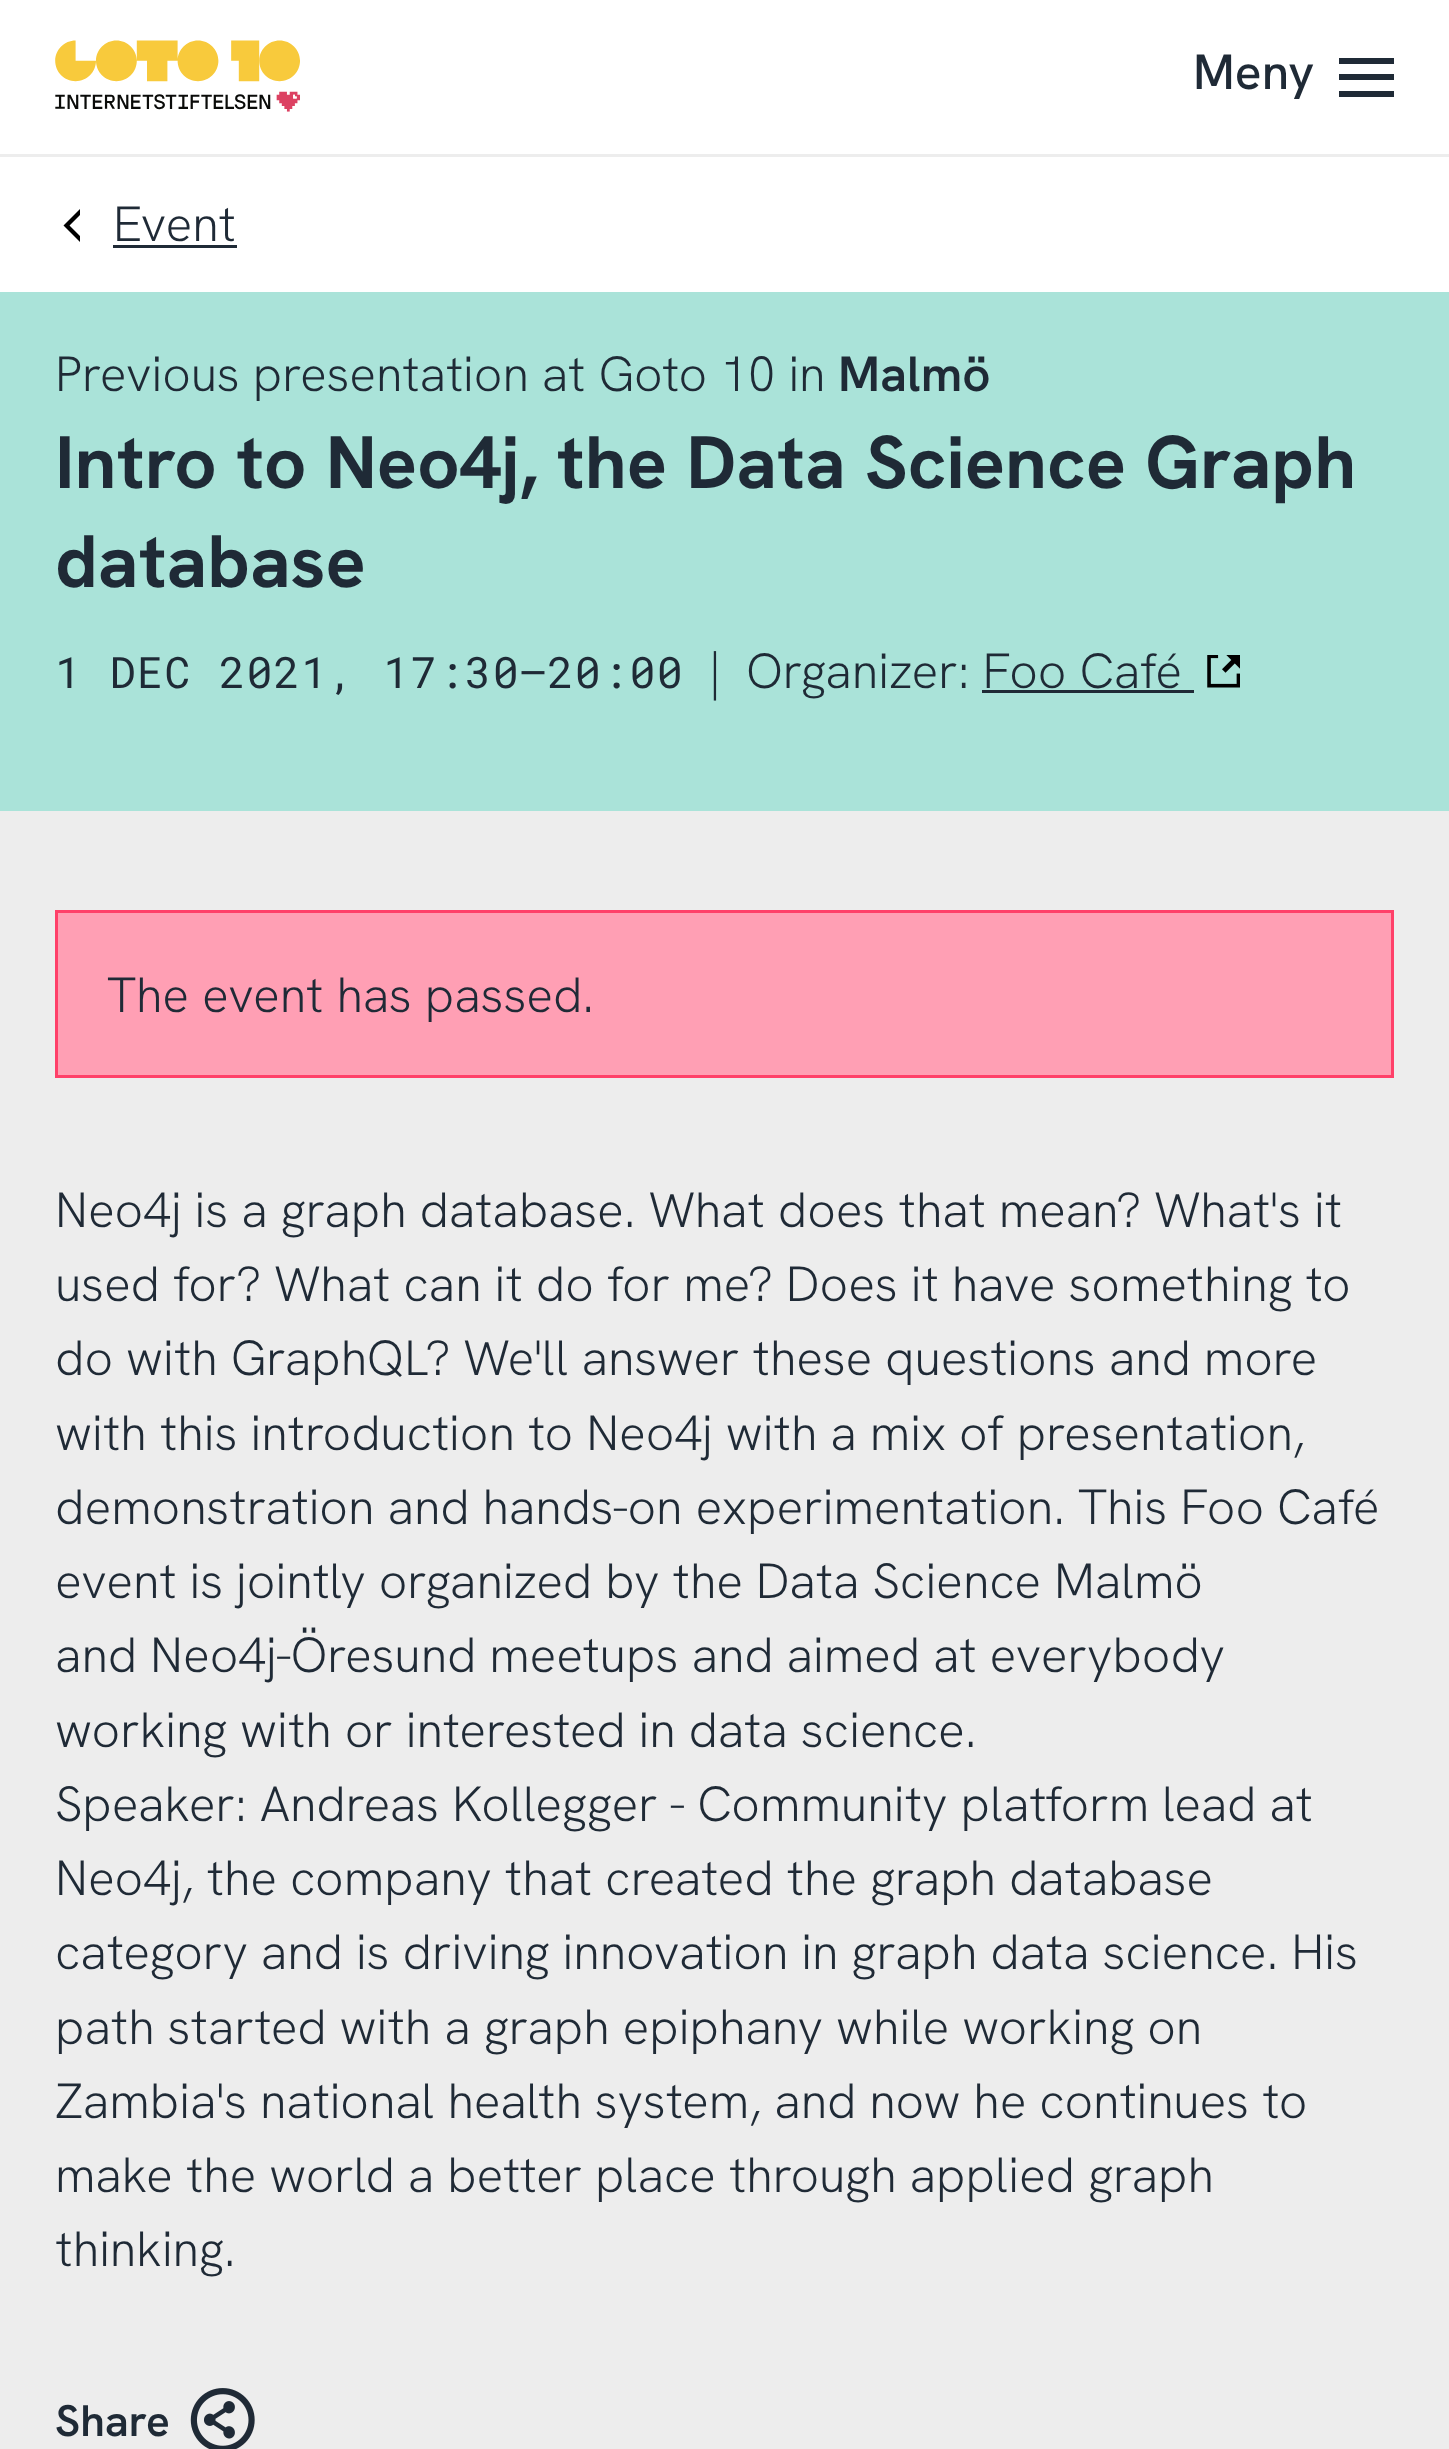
async function draw(canvas) {
	canvas.width = 1449;
	canvas.height = 2449;
	const c = canvas.getContext('2d');
	c.miterLimit = 4;
	c.fontKerning = 'normal';
	async function loadImage(src) {
		const img = new Image();
		img.src = src;
		await img.decode();
		return img;
	}

	c.fillStyle = '#ededed';
	c.fillRect(0, 0, 1449, 2449);
	c.fillStyle = '#fff';
	c.fillRect(0, 0, 1449, 154);
	c.drawImage(await loadImage('img1.png'), 55, 40, 245, 72);
	c.font = '500 49.5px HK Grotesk';
	c.fillStyle = '#1f2a36';
	c.fillText('Meny', 1193, 89);
	for (const [x, y, w, h, color] of [
		[1339, 74, 55, 6, '#1f2a36'],
		[1339, 58, 55, 6, '#1f2a36'],
		[1339, 91, 55, 6, '#1f2a36'],
		[0, 157, 1449, 135, '#fff'],
	]) {
		c.fillStyle = color;
		c.fillRect(x, y, w, h);
	}
	c.save();
	c.beginPath();
	c.rect(63, 209, 17, 33);
	c.clip();
	c.fillStyle = '#000';
	c.beginPath();
	c.moveTo(80, 242);
	c.lineTo(63.5, 225.5);
	c.lineTo(80, 209);
	c.lineTo(83, 212);
	c.lineTo(69.5, 225.5);
	c.lineTo(83, 239);
	c.closePath();
	c.fill();
	c.restore();
	c.font = '300 49.5px HK Grotesk';
	c.fillStyle = '#1f2a36';
	c.fillText('Event', 113, 241);
	c.fillRect(113, 245, 124, 3);
	c.fillStyle = '#aae3d9';
	c.fillRect(0, 292, 1449, 519);
	c.fillStyle = '#1f2a36';
	c.fillText('Previous presentation at Goto 10 in', 55, 391);
	c.font = '600 49.5px HK Grotesk';
	c.fillText('Malmö', 838, 391);
	c.font = 'bold 74.25px HK Grotesk';
	c.fillText('Intro to Neo4j, the Data Science Graph', 55, 488);
	c.fillText('database', 55, 587);
	c.letterSpacing = '1.4px';
	c.font = '43.25px Roboto Mono';
	c.fillText('1 DEC 2021, 17:30–20:00', 55, 688);
	c.letterSpacing = '0px';
	c.font = '300 49.5px HK Grotesk';
	c.fillText('|', 709, 688);
	c.fillText('Organizer: Foo Café', 746, 688);
	c.drawImage(await loadImage('img2.png'), 1207, 655, 33, 33);
	c.fillRect(982, 690, 212, 3);
	c.fillStyle = '#ff9fb4';
	c.beginPath();
	c.rect(56.5, 911.5, 1336, 165);
	c.fill();
	c.strokeStyle = '#ff4069';
	c.lineWidth = 3;
	c.stroke();
	c.fillStyle = '#1f2a36';
	for (const [text, x, y] of [
		['The event has passed.', 107, 1012],
		['Neo4j is a graph database. What does that mean? What\'s it', 55, 1227],
		['used for? What can it do for me? Does it have something to', 55, 1301],
		['do with GraphQL? We\'ll answer these questions and more', 55, 1375],
		['with this introduction to Neo4j with a mix of presentation,', 55, 1450],
		['demonstration and hands-on experimentation. This Foo Café', 55, 1524],
		['event is jointly organized by the Data Science Malmö', 55, 1598],
		['and Neo4j-Öresund meetups and aimed at everybody', 55, 1672],
		['working with or interested in data science.', 55, 1747],
		['Speaker: Andreas Kollegger - Community platform lead at', 55, 1821],
		['Neo4j, the company that created the graph database', 55, 1895],
		['category and is driving innovation in graph data science. His', 55, 1969],
		['path started with a graph epiphany while working on', 55, 2044],
		['Zambia\'s national health system, and now he continues to', 55, 2118],
		['make the world a better place through applied graph', 55, 2192],
		['thinking.', 55, 2266],
	]) {
		c.fillText(text, x, y);
	}
	c.font = '600 44px HK Grotesk';
	c.fillText('Share', 55, 2436);
	c.drawImage(await loadImage('img3.png'), 190, 2388, 65, 61);
}

draw(document.querySelector('canvas'));
